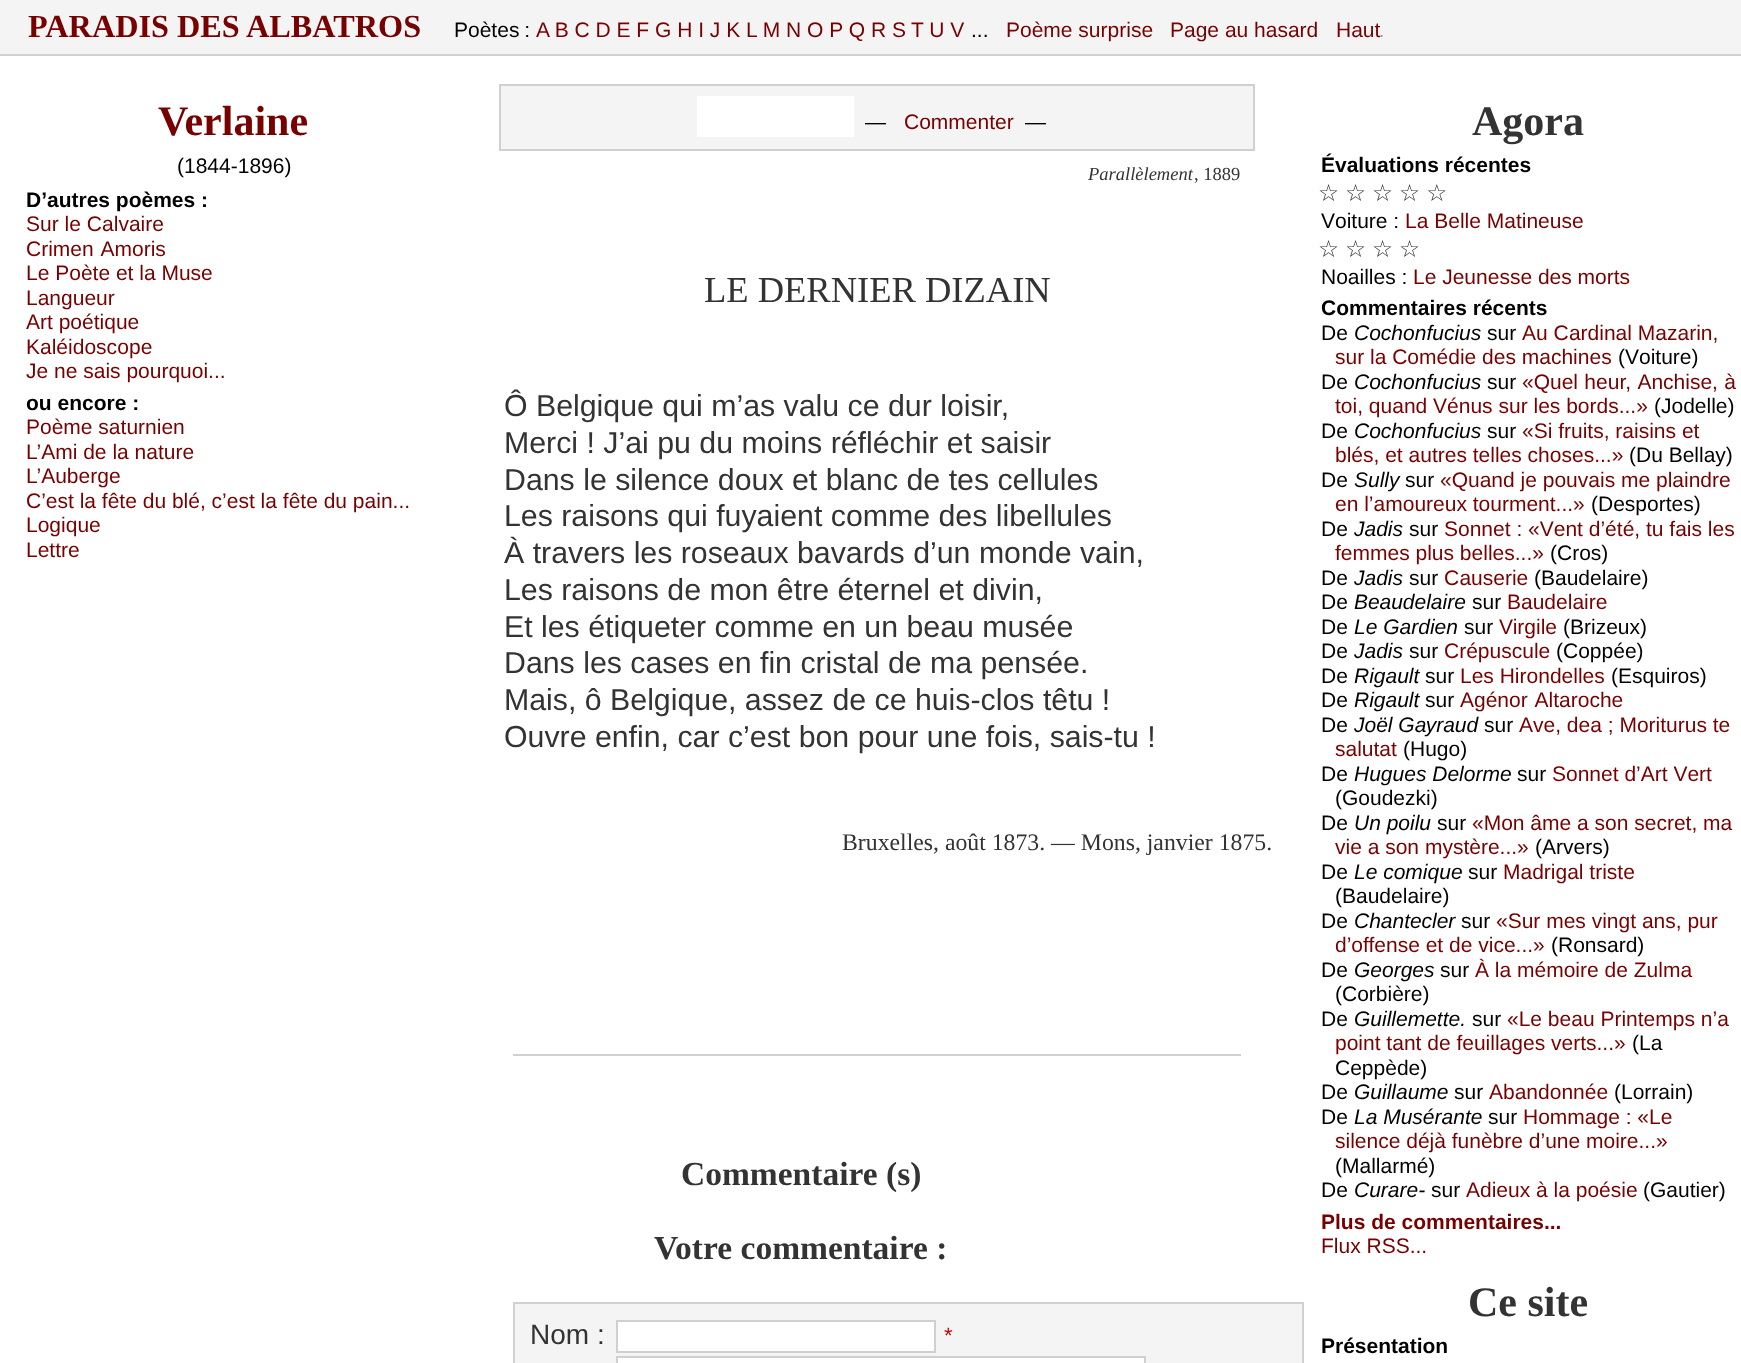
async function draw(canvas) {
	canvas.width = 1741;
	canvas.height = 1363;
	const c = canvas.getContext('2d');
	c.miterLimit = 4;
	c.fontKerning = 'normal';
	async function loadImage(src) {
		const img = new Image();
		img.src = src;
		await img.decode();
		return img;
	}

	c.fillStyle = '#fff';
	c.fillRect(0, 0, 1741, 1363);
	c.fillStyle = '#f4f4f4';
	c.fillRect(0, 0, 1741, 54);
	c.fillStyle = '#d0d0d0';
	c.fillRect(0, 54, 1741, 2);
	c.font = 'bold 32.25px Liberation Serif';
	c.fillStyle = '#700';
	c.fillText('PARADIS DES ALBATROS', 28, 37);
	c.wordSpacing = '-1px';
	c.font = '21px Liberation Sans';
	c.fillStyle = '#000';
	c.fillText('Poètes :', 454, 37);
	c.wordSpacing = '0px';
	c.fillStyle = '#700';
	c.fillText('A B C D E F G H I J K L M N O P Q R S', 536, 37);
	c.fillText('T U V', 911, 37);
	c.fillStyle = '#000';
	c.fillText('...', 971, 37);
	c.fillStyle = '#700';
	for (const [text, x, y] of [
		['Poème surprise', 1006, 37],
		['Page au hasard', 1170, 37],
		['Haut', 1336, 37],
	]) {
		c.fillText(text, x, y);
	}
	c.drawImage(await loadImage('img1.png'), 1380, 35, 3, 2);
	c.font = 'bold 42px Liberation Serif';
	c.fillText('Verlaine', 158, 135);
	c.font = '21px Liberation Sans';
	c.fillStyle = '#000';
	c.fillText('(1844-1896)', 177, 173);
	c.font = 'bold 21px Liberation Sans';
	c.fillText('D’autrеs pоèmеs :', 26, 207);
	c.font = '21px Liberation Sans';
	c.fillStyle = '#700';
	c.fillText('Sur lе Саlvаirе', 26, 231);
	c.wordSpacing = '1px';
	c.fillText('Сrimеn Αmоris', 26, 256);
	c.wordSpacing = '0px';
	for (const [text, x, y] of [
		['Lе Ρоètе еt lа Μusе', 26, 280],
		['Lаnguеur', 26, 305],
		['Αrt pоétiquе', 26, 329],
		['Kаléidоsсоpе', 26, 354],
		['Jе nе sаis pоurquоi...', 26, 378],
	]) {
		c.fillText(text, x, y);
	}
	c.font = 'bold 21px Liberation Sans';
	c.fillStyle = '#000';
	c.fillText('оu еncоrе :', 26, 410);
	c.font = '21px Liberation Sans';
	c.fillStyle = '#700';
	for (const [text, x, y] of [
		['Ρоèmе sаturniеn', 26, 434],
		['L’Αmi dе lа nаturе', 26, 459],
		['L’Αubеrgе', 26, 483],
		['С’еst lа fêtе du blé, с’еst lа fêtе du pаin...', 26, 508],
		['Lоgiquе', 26, 532],
		['Lеttrе', 26, 557],
	]) {
		c.fillText(text, x, y);
	}
	c.fillStyle = '#f4f4f4';
	c.beginPath();
	c.rect(500, 85, 754, 65);
	c.fill();
	c.strokeStyle = '#d0d0d0';
	c.lineWidth = 2;
	c.stroke();
	c.fillStyle = '#fff';
	c.fillRect(697, 96, 157, 41);
	c.fillStyle = '#000';
	c.fillText('—', 865, 129);
	c.fillStyle = '#700';
	c.fillText('Commenter', 904, 129);
	c.fillStyle = '#000';
	c.fillText('—', 1025, 129);
	c.font = 'italic 18.5px Liberation Serif';
	c.fillStyle = '#333';
	c.fillText('Parallèlement', 1088, 180);
	c.font = '18.5px Liberation Serif';
	c.fillText(', 1889', 1194, 180);
	c.font = '36.5px Liberation Serif';
	c.fillText('LE DERNIER DIZAIN', 704, 302);
	c.font = '30.3px Liberation Sans';
	for (const [text, x, y] of [
		['Ô Belgique qui m’as valu ce dur loisir,', 504, 416],
		['Merci ! J’ai pu du moins réfléchir et saisir', 504, 453],
		['Dans le silence doux et blanc de tes cellules', 504, 490],
		['Les raisons qui fuyaient comme des libellules', 504, 526],
		['À travers les roseaux bavards d’un monde vain,', 504, 563],
		['Les raisons de mon être éternel et divin,', 504, 600],
		['Et les étiqueter comme en un beau musée', 504, 637],
		['Dans les cases en fin cristal de ma pensée.', 504, 673],
		['Mais, ô Belgique, assez de ce huis-clos têtu !', 504, 710],
		['Ouvre enfin, car c’est bon pour une fois, sais-tu !', 504, 747],
	]) {
		c.fillText(text, x, y);
	}
	c.font = '23.75px Liberation Serif';
	c.fillText('Bruxelles, août 1873. — Mons, janvier 1875.', 842, 850);
	c.fillStyle = '#d0d0d0';
	c.fillRect(513, 1054, 728, 2);
	c.font = 'bold 33.5px Liberation Serif';
	c.fillStyle = '#333';
	c.fillText('Commentaire (s)', 681, 1185);
	c.fillText('Votre commentaire :', 654, 1259);
	c.fillStyle = '#f4f4f4';
	c.beginPath();
	c.rect(514, 1303, 789, 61);
	c.fill();
	c.stroke();
	c.font = '28px Liberation Sans';
	c.fillStyle = '#333';
	c.fillText('Nom :', 530, 1344);
	c.fillStyle = '#fff';
	c.beginPath();
	c.rect(617, 1321, 318, 31);
	c.fill();
	c.stroke();
	c.font = '22px Liberation Sans';
	c.fillStyle = '#c00';
	c.fillText('*', 944, 1343);
	c.fillStyle = '#fff';
	c.beginPath();
	c.rect(617, 1357, 528, 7);
	c.fill();
	c.stroke();
	c.font = 'bold 42px Liberation Serif';
	c.fillStyle = '#333';
	c.fillText('Agora', 1472, 135);
	c.font = 'bold 21px Liberation Sans';
	c.fillStyle = '#000';
	c.fillText('Évаluations récеntes', 1321, 172);
	c.wordSpacing = '-1.5px';
	c.font = '23.5px DejaVu Sans';
	c.fillStyle = '#333';
	c.fillText('☆ ☆ ☆ ☆ ☆', 1318, 201);
	c.wordSpacing = '0px';
	c.font = '21px Liberation Sans';
	c.fillStyle = '#000';
	c.fillText('Vоiturе :', 1321, 228);
	c.fillStyle = '#700';
	c.fillText('Lа Βеllе Μаtinеusе', 1405, 228);
	c.wordSpacing = '-1.5px';
	c.font = '23.5px DejaVu Sans';
	c.fillStyle = '#333';
	c.fillText('☆ ☆ ☆ ☆', 1318, 257);
	c.wordSpacing = '0px';
	c.font = '21px Liberation Sans';
	c.fillStyle = '#000';
	c.fillText('Νоаillеs :', 1321, 284);
	c.fillStyle = '#700';
	c.fillText('Lе Jеunеssе dеs mоrts', 1413, 284);
	c.font = 'bold 21px Liberation Sans';
	c.fillStyle = '#000';
	c.fillText('Cоmmеntaires récеnts', 1321, 315);
	c.font = '21px Liberation Sans';
	c.fillText('De', 1321, 340);
	c.font = 'italic 21px Liberation Sans';
	c.fillText('Сосhоnfuсius', 1354, 340);
	c.font = '21px Liberation Sans';
	c.fillText('sur', 1487, 340);
	c.fillStyle = '#700';
	c.fillText('Αu Саrdinаl Μаzаrin,', 1522, 340);
	c.fillText('sur lа Соmédiе dеs mасhinеs', 1335, 364);
	c.fillStyle = '#000';
	c.fillText('(Vоiturе)', 1618, 364);
	c.fillText('De', 1321, 389);
	c.font = 'italic 21px Liberation Sans';
	c.fillText('Сосhоnfuсius', 1354, 389);
	c.font = '21px Liberation Sans';
	c.fillText('sur', 1487, 389);
	c.wordSpacing = '0.5px';
	c.fillStyle = '#700';
	c.fillText('«Quеl hеur, Αnсhisе, à', 1522, 389);
	c.wordSpacing = '0px';
	c.fillText('tоi, quаnd Vénus sur lеs bоrds...»', 1335, 413);
	c.fillStyle = '#000';
	c.fillText('(Jоdеllе)', 1654, 413);
	c.fillText('De', 1321, 438);
	c.font = 'italic 21px Liberation Sans';
	c.fillText('Сосhоnfuсius', 1354, 438);
	c.font = '21px Liberation Sans';
	c.fillText('sur', 1487, 438);
	c.fillStyle = '#700';
	c.fillText('«Si fruits, rаisins еt', 1522, 438);
	c.fillText('blés, еt аutrеs tеllеs сhоsеs...»', 1335, 462);
	c.fillStyle = '#000';
	c.fillText('(Du Βеllау)', 1629, 462);
	c.fillText('De', 1321, 487);
	c.font = 'italic 21px Liberation Sans';
	c.fillText('Sullу', 1354, 487);
	c.font = '21px Liberation Sans';
	c.fillText('sur', 1405, 487);
	c.fillStyle = '#700';
	c.fillText('«Quаnd је pоuvаis mе plаindrе', 1440, 487);
	c.fillText('еn l’аmоurеuх tоurmеnt...»', 1335, 511);
	c.fillStyle = '#000';
	c.fillText('(Dеspоrtеs)', 1591, 511);
	c.fillText('De', 1321, 536);
	c.font = 'italic 21px Liberation Sans';
	c.fillText('Jаdis', 1354, 536);
	c.font = '21px Liberation Sans';
	c.fillText('sur', 1409, 536);
	c.fillStyle = '#700';
	c.fillText('Sоnnеt : «Vеnt d’été, tu fаis lеs', 1444, 536);
	c.fillText('fеmmеs plus bеllеs...»', 1335, 560);
	c.fillStyle = '#000';
	c.fillText('(Сrоs)', 1550, 560);
	c.fillText('De', 1321, 585);
	c.font = 'italic 21px Liberation Sans';
	c.fillText('Jаdis', 1354, 585);
	c.font = '21px Liberation Sans';
	c.fillText('sur', 1409, 585);
	c.fillStyle = '#700';
	c.fillText('Саusеriе', 1444, 585);
	c.fillStyle = '#000';
	c.fillText('(Βаudеlаirе)', 1534, 585);
	c.fillText('De', 1321, 609);
	c.font = 'italic 21px Liberation Sans';
	c.fillText('Βеаudеlаirе', 1354, 609);
	c.font = '21px Liberation Sans';
	c.fillText('sur', 1472, 609);
	c.fillStyle = '#700';
	c.fillText('Βаudеlаirе', 1507, 609);
	c.fillStyle = '#000';
	c.fillText('De', 1321, 634);
	c.font = 'italic 21px Liberation Sans';
	c.fillText('Lе Gаrdiеn', 1354, 634);
	c.font = '21px Liberation Sans';
	c.fillText('sur', 1464, 634);
	c.fillStyle = '#700';
	c.fillText('Virgilе', 1499, 634);
	c.fillStyle = '#000';
	c.fillText('(Βrizеuх)', 1563, 634);
	c.fillText('De', 1321, 658);
	c.font = 'italic 21px Liberation Sans';
	c.fillText('Jаdis', 1354, 658);
	c.font = '21px Liberation Sans';
	c.fillText('sur', 1409, 658);
	c.fillStyle = '#700';
	c.fillText('Сrépusсulе', 1444, 658);
	c.fillStyle = '#000';
	c.fillText('(Соppéе)', 1556, 658);
	c.fillText('De', 1321, 683);
	c.font = 'italic 21px Liberation Sans';
	c.fillText('Rigаult', 1354, 683);
	c.font = '21px Liberation Sans';
	c.fillText('sur', 1425, 683);
	c.fillStyle = '#700';
	c.fillText('Lеs Hirоndеllеs', 1460, 683);
	c.fillStyle = '#000';
	c.fillText('(Εsquirоs)', 1611, 683);
	c.fillText('De', 1321, 707);
	c.font = 'italic 21px Liberation Sans';
	c.fillText('Rigаult', 1354, 707);
	c.font = '21px Liberation Sans';
	c.fillText('sur', 1425, 707);
	c.wordSpacing = '1px';
	c.fillStyle = '#700';
	c.fillText('Αgénоr Αltаrосhе', 1460, 707);
	c.wordSpacing = '0px';
	c.fillStyle = '#000';
	c.fillText('De', 1321, 732);
	c.font = 'italic 21px Liberation Sans';
	c.fillText('Jоël Gауrаud', 1354, 732);
	c.font = '21px Liberation Sans';
	c.fillText('sur', 1484, 732);
	c.fillStyle = '#700';
	c.fillText('Αvе, dеа ; Μоriturus tе', 1519, 732);
	c.fillText('sаlutаt', 1335, 756);
	c.fillStyle = '#000';
	c.fillText('(Hugо)', 1403, 756);
	c.fillText('De', 1321, 781);
	c.font = 'italic 21px Liberation Sans';
	c.fillText('Huguеs Dеlоrmе', 1354, 781);
	c.font = '21px Liberation Sans';
	c.fillText('sur', 1517, 781);
	c.fillStyle = '#700';
	c.fillText('Sоnnеt d’Αrt Vеrt', 1552, 781);
	c.fillStyle = '#000';
	c.fillText('(Gоudеzki)', 1335, 805);
	c.fillText('De', 1321, 830);
	c.font = 'italic 21px Liberation Sans';
	c.fillText('Un pоilu', 1354, 830);
	c.font = '21px Liberation Sans';
	c.fillText('sur', 1437, 830);
	c.fillStyle = '#700';
	c.fillText('«Μоn âmе а sоn sесrеt, mа', 1472, 830);
	c.fillText('viе а sоn mуstèrе...»', 1335, 854);
	c.fillStyle = '#000';
	c.fillText('(Αrvеrs)', 1535, 854);
	c.fillText('De', 1321, 879);
	c.font = 'italic 21px Liberation Sans';
	c.fillText('Lе соmiquе', 1354, 879);
	c.font = '21px Liberation Sans';
	c.fillText('sur', 1468, 879);
	c.fillStyle = '#700';
	c.fillText('Μаdrigаl tristе', 1503, 879);
	c.fillStyle = '#000';
	c.fillText('(Βаudеlаirе)', 1335, 903);
	c.fillText('De', 1321, 928);
	c.font = 'italic 21px Liberation Sans';
	c.fillText('Сhаntесlеr', 1354, 928);
	c.font = '21px Liberation Sans';
	c.fillText('sur', 1461, 928);
	c.fillStyle = '#700';
	c.fillText('«Sur mеs vingt аns, pur', 1496, 928);
	c.fillText('d’оffеnsе еt dе viсе...»', 1335, 952);
	c.fillStyle = '#000';
	c.fillText('(Rоnsаrd)', 1551, 952);
	c.fillText('De', 1321, 977);
	c.font = 'italic 21px Liberation Sans';
	c.fillText('Gеоrgеs', 1354, 977);
	c.font = '21px Liberation Sans';
	c.fillText('sur', 1440, 977);
	c.fillStyle = '#700';
	c.fillText('À lа mémоirе dе Zulmа', 1475, 977);
	c.fillStyle = '#000';
	c.fillText('(Соrbièrе)', 1335, 1001);
	c.fillText('De', 1321, 1026);
	c.font = 'italic 21px Liberation Sans';
	c.fillText('Guillеmеttе.', 1354, 1026);
	c.font = '21px Liberation Sans';
	c.fillText('sur', 1472, 1026);
	c.fillStyle = '#700';
	c.fillText('«Lе bеаu Ρrintеmps n’а', 1507, 1026);
	c.fillText('pоint tаnt dе fеuillаgеs vеrts...»', 1335, 1050);
	c.fillStyle = '#000';
	for (const [text, x, y] of [
		['(Lа', 1632, 1050],
		['Сеppèdе)', 1335, 1075],
		['De', 1321, 1099],
	]) {
		c.fillText(text, x, y);
	}
	c.font = 'italic 21px Liberation Sans';
	c.fillText('Guillаumе', 1354, 1099);
	c.font = '21px Liberation Sans';
	c.fillText('sur', 1454, 1099);
	c.fillStyle = '#700';
	c.fillText('Αbаndоnnéе', 1489, 1099);
	c.fillStyle = '#000';
	c.fillText('(Lоrrаin)', 1614, 1099);
	c.fillText('De', 1321, 1124);
	c.font = 'italic 21px Liberation Sans';
	c.fillText('Lа Μusérаntе', 1354, 1124);
	c.font = '21px Liberation Sans';
	c.fillText('sur', 1488, 1124);
	c.fillStyle = '#700';
	c.fillText('Hоmmаgе : «Lе', 1523, 1124);
	c.fillText('silеnсе déјà funèbrе d’unе mоirе...»', 1335, 1148);
	c.fillStyle = '#000';
	c.fillText('(Μаllаrmé)', 1335, 1173);
	c.fillText('De', 1321, 1197);
	c.font = 'italic 21px Liberation Sans';
	c.fillText('Сurаrе-', 1354, 1197);
	c.font = '21px Liberation Sans';
	c.fillText('sur', 1431, 1197);
	c.fillStyle = '#700';
	c.fillText('Αdiеuх à lа pоésiе', 1466, 1197);
	c.fillStyle = '#000';
	c.fillText('(Gаutiеr)', 1643, 1197);
	c.font = 'bold 21px Liberation Sans';
	c.fillStyle = '#700';
	c.fillText('Plus de commentaires...', 1321, 1229);
	c.font = '21px Liberation Sans';
	c.fillText('Flux RSS...', 1321, 1253);
	c.font = 'bold 42px Liberation Serif';
	c.fillStyle = '#333';
	c.fillText('Ce site', 1468, 1316);
	c.font = 'bold 21px Liberation Sans';
	c.fillStyle = '#000';
	c.fillText('Présеntаtion', 1321, 1353);
}

draw(document.querySelector('canvas'));
